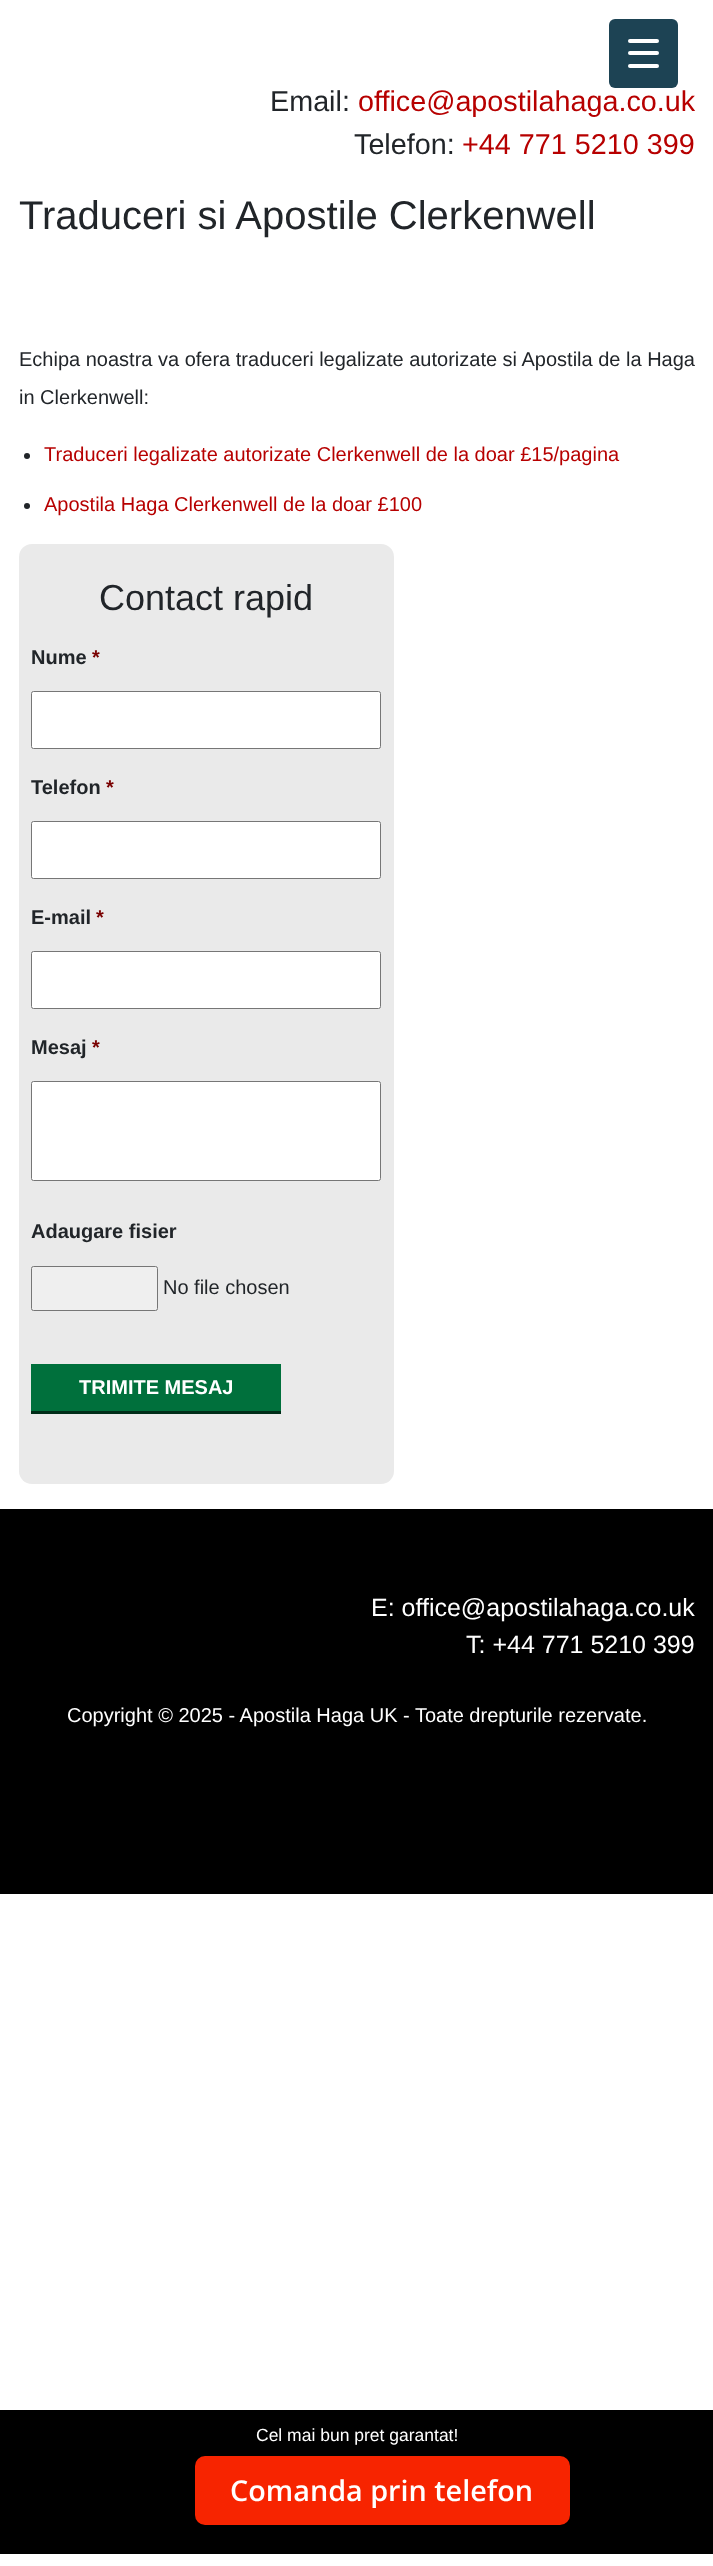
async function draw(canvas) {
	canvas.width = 713;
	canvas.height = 2566;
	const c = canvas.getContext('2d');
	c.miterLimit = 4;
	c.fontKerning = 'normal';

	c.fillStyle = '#fff';
	c.fillRect(0, 0, 713, 2566);
	c.fillStyle = '#1d4354';
	c.beginPath();
	c.roundRect(609, 19, 69, 69, 6);
	c.fill();
	c.fillStyle = '#fff';
	c.beginPath();
	c.roundRect(628, 51, 31, 4, 2);
	c.fill();
	c.beginPath();
	c.roundRect(628, 39, 31, 4, 2);
	c.fill();
	c.beginPath();
	c.roundRect(628, 64, 31, 4, 2);
	c.fill();
	c.font = '28.75px Liberation Sans';
	c.fillStyle = '#212529';
	c.fillText('Email:', 270, 111);
	c.fillStyle = '#b70000';
	c.fillText('office@apostilahaga.co.uk', 358, 111);
	c.fillStyle = '#212529';
	c.fillText('Telefon:', 354, 154);
	c.fillStyle = '#b70000';
	c.fillText('+44 771 5210 399', 462, 154);
	c.font = '40px Liberation Sans';
	c.fillStyle = '#212529';
	c.fillText('Traduceri si Apostile Clerkenwell', 19, 229);
	c.font = '20px Liberation Sans';
	c.fillText('Echipa noastra va ofera traduceri legalizate autorizate si Apostila de la Haga', 19, 366);
	c.fillText('in Clerkenwell:', 19, 404);
	c.beginPath();
	c.arc(27, 456, 3, 0, 2 * Math.PI);
	c.fill();
	c.fillStyle = '#b70000';
	c.fillText('Traduceri legalizate autorizate Clerkenwell de la doar £15/pagina', 44, 461);
	c.fillStyle = '#212529';
	c.beginPath();
	c.arc(27, 506, 3, 0, 2 * Math.PI);
	c.fill();
	c.fillStyle = '#b70000';
	c.fillText('Apostila Haga Clerkenwell de la doar £100', 44, 511);
	c.fillStyle = '#eaeaea';
	c.beginPath();
	c.roundRect(19, 544, 375, 940, 13);
	c.fill();
	c.font = '36px Liberation Sans';
	c.fillStyle = '#212529';
	c.fillText('Contact rapid', 99, 610);
	c.font = 'bold 20px Liberation Sans';
	c.fillText('Nume', 31, 664);
	c.fillStyle = '#790000';
	c.fillText('*', 92, 664);
	c.fillStyle = '#fff';
	c.beginPath();
	c.roundRect(31.5, 691.5, 349, 57, 2);
	c.fill();
	c.strokeStyle = '#767676';
	c.stroke();
	c.fillStyle = '#212529';
	c.fillText('Telefon', 31, 794);
	c.fillStyle = '#790000';
	c.fillText('*', 106, 794);
	c.fillStyle = '#fff';
	c.beginPath();
	c.roundRect(31.5, 821.5, 349, 57, 2);
	c.fill();
	c.stroke();
	c.fillStyle = '#212529';
	c.fillText('E-mail', 31, 924);
	c.fillStyle = '#790000';
	c.fillText('*', 96, 924);
	c.fillStyle = '#fff';
	c.beginPath();
	c.roundRect(31.5, 951.5, 349, 57, 2);
	c.fill();
	c.stroke();
	c.fillStyle = '#212529';
	c.fillText('Mesaj', 31, 1054);
	c.fillStyle = '#790000';
	c.fillText('*', 92, 1054);
	c.fillStyle = '#fff';
	c.beginPath();
	c.roundRect(31.5, 1081.5, 349, 99, 2);
	c.fill();
	c.stroke();
	c.fillStyle = '#212529';
	c.fillText('Adaugare fisier', 31, 1238);
	c.fillStyle = '#efefef';
	c.beginPath();
	c.roundRect(31.5, 1266.5, 126, 44, 2);
	c.fill();
	c.stroke();
	c.font = '20px Liberation Sans';
	c.fillStyle = '#212529';
	c.fillText('No file chosen', 163, 1294);
	c.fillStyle = '#002d18';
	c.beginPath();
	c.moveTo(31, 1366);
	c.lineTo(31, 1414);
	c.lineTo(281, 1414);
	c.lineTo(281, 1411);
	c.lineTo(31, 1411);
	c.closePath();
	c.fill();
	c.fillStyle = '#00703c';
	c.fillRect(31, 1364, 250, 47);
	c.font = 'bold 20px Liberation Sans';
	c.fillStyle = '#fff';
	c.fillText('TRIMITE MESAJ', 79, 1394);
	c.fillStyle = '#000';
	c.fillRect(0, 1509, 713, 385);
	c.font = '25px Liberation Sans';
	c.fillStyle = '#fff';
	c.fillText('E: office@apostilahaga.co.uk', 371, 1616);
	c.fillText('T: +44 771 5210 399', 466, 1653);
	c.font = '20px Liberation Sans';
	c.fillText('Copyright © 2025 - Apostila Haga UK - Toate drepturile rezervate.', 67, 1722);
	c.fillStyle = '#000';
	c.fillRect(0, 2410, 713, 144);
	c.font = '17.5px Liberation Sans';
	c.fillStyle = '#fff';
	c.fillText('Cel mai bun pret garantat!', 256, 2441);
	c.fillStyle = '#f72400';
	c.beginPath();
	c.roundRect(195, 2456, 375, 69, 10);
	c.fill();
	c.font = '600 28.75px Open Sans';
	c.fillStyle = '#fff';
	c.fillText('Comanda prin telefon', 230, 2501);
}

draw(document.querySelector('canvas'));
